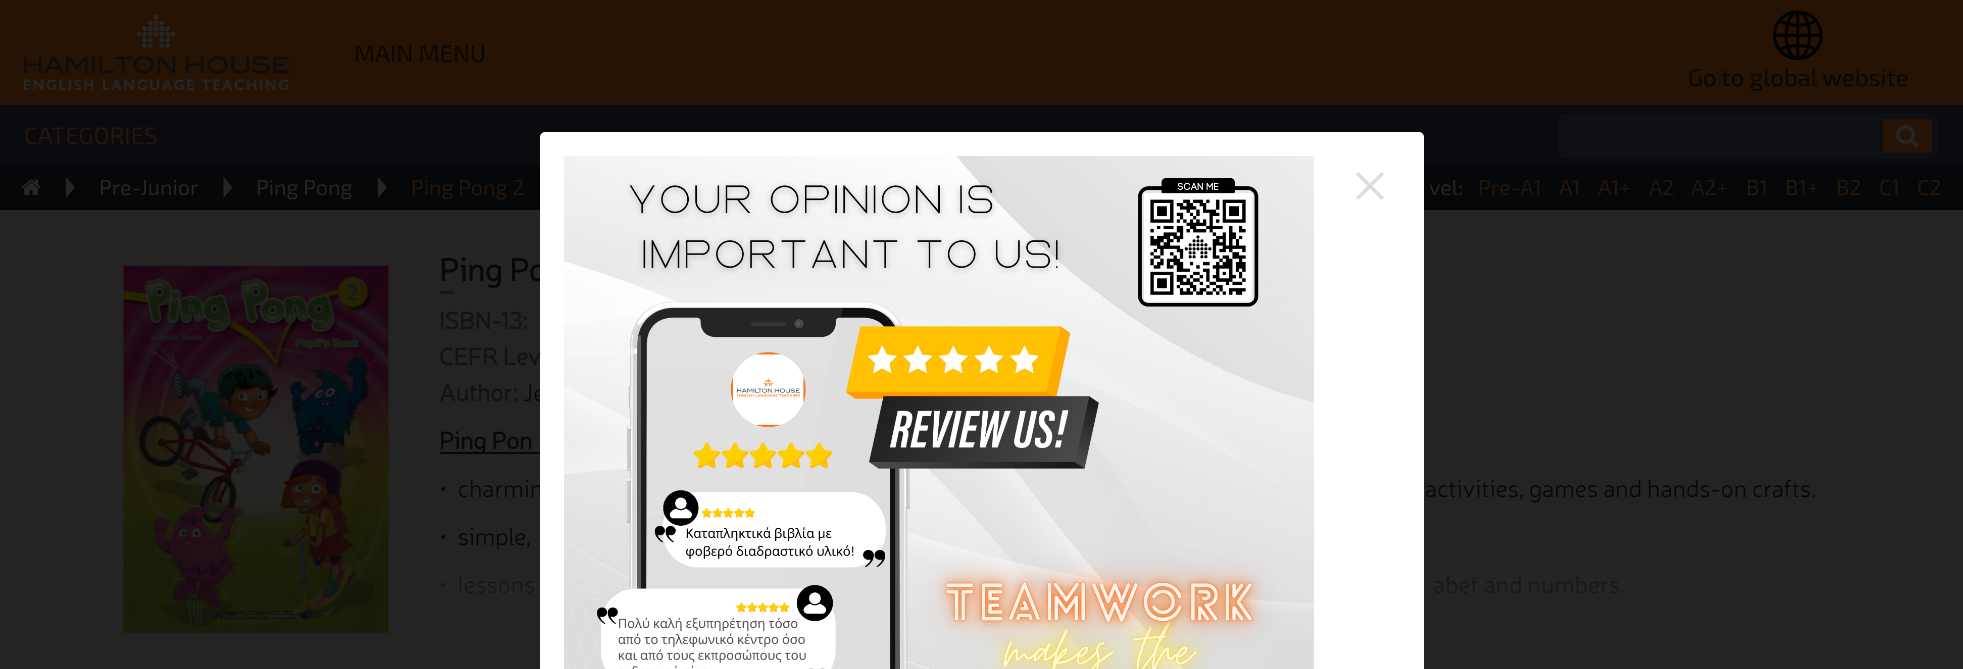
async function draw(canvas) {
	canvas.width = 1963;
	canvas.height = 669;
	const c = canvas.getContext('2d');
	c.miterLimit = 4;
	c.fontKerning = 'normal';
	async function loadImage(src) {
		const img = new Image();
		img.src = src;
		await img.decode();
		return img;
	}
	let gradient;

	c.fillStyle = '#242424';
	c.fillRect(0, 0, 1963, 669);
	c.fillStyle = '#261303';
	c.fillRect(0, 0, 1963, 105);
	c.drawImage(await loadImage('img1.png'), 24, 15, 266, 75);
	c.font = '24px "Exo 2"';
	c.fillStyle = '#080808';
	c.fillText('MAIN MENU', 354, 62);
	c.drawImage(await loadImage('img2.png'), 1773, 10, 50, 50);
	c.fillText('Go to global website', 1688, 86);
	c.fillStyle = '#090b0e';
	c.fillRect(0, 105, 1963, 60);
	c.fillStyle = '#26170b';
	c.fillText('CATEGORIES', 24, 144);
	c.fillStyle = '#0d0f12';
	c.beginPath();
	c.roundRect(1557, 112, 382, 48, 8);
	c.fill();
	c.strokeStyle = '#080a0d';
	c.lineWidth = 2;
	c.stroke();
	c.fillStyle = '#261507';
	c.beginPath();
	c.roundRect(1883, 119, 49, 34, 5);
	c.fill();
	c.drawImage(await loadImage('img3.png'), 1896, 125, 23, 23);
	c.fillStyle = '#050708';
	c.fillRect(0, 165, 1963, 45);
	c.drawImage(await loadImage('img4.png'), 21, 179, 20, 16);
	c.fillStyle = '#262626';
	c.beginPath();
	c.moveTo(66, 198);
	c.lineTo(66, 177);
	c.lineTo(75, 187.5);
	c.closePath();
	c.fill();
	c.font = '21.5px "Exo 2"';
	c.fillText('Pre-Junior', 99, 195);
	c.beginPath();
	c.moveTo(223.5, 198);
	c.lineTo(223.5, 177);
	c.lineTo(232.5, 187.5);
	c.closePath();
	c.fill();
	c.fillText('Ping Pong', 256, 195);
	c.beginPath();
	c.moveTo(378, 198);
	c.lineTo(378, 177);
	c.lineTo(387, 187.5);
	c.closePath();
	c.fill();
	c.fillStyle = '#26170b';
	c.fillText('Ping Pong 2', 411, 195);
	c.fillStyle = '#262626';
	c.fillText('vel:', 1429, 195);
	c.fillStyle = '#26170b';
	for (const [text, x, y] of [
		['Pre-A1', 1478, 195],
		['A1', 1559, 195],
		['A1+', 1598, 195],
		['A2', 1649, 195],
		['A2+', 1691, 195],
		['B1', 1746, 195],
		['B1+', 1785, 195],
		['B2', 1836, 195],
		['C1', 1879, 195],
		['C2', 1917, 195],
	]) {
		c.fillText(text, x, y);
	}
	c.font = 'bold 32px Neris';
	c.fillStyle = '#080808';
	c.fillText('Ping Po', 439, 281);
	c.font = '300 24px Neris';
	for (const [text, x, y] of [
		['Je', 523, 401],
		['•  charmin', 439, 497],
		['•  simple,', 439, 545],
		['•  lessons', 439, 593],
		['abet and numbers.', 1433, 593],
	]) {
		c.fillText(text, x, y);
	}
	gradient = c.createLinearGradient(1149, 538, 1149, 635);
	gradient.addColorStop(0, '#26262600');
	gradient.addColorStop(1, '#262626');
	c.fillStyle = gradient;
	c.fillRect(441, 547, 1183, 47);
	c.fillStyle = '#fff';
	c.beginPath();
	c.roundRect(540, 132, 884, 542, 5);
	c.fill();
	c.drawImage(await loadImage('img5.png'), 564, 156, 750, 513);
	c.fillStyle = '#ddd';
	c.beginPath();
	c.moveTo(1356, 174.5);
	c.lineTo(1358.5, 172);
	c.lineTo(1384, 197.5);
	c.lineTo(1381.5, 200);
	c.closePath();
	c.fill();
	c.beginPath();
	c.moveTo(1381.5, 172);
	c.lineTo(1384, 174.5);
	c.lineTo(1358.5, 200);
	c.lineTo(1356, 197.5);
	c.closePath();
	c.fill();
	c.drawImage(await loadImage('img6.png'), 122, 265, 267, 368);
	c.fillStyle = '#261303';
	c.fillRect(440, 291, 13, 3);
	c.font = 'bold 24px Neris';
	c.fillStyle = '#131313';
	for (const [text, x, y] of [
		['ISBN-13:', 439, 329],
		['CEFR Lev', 439, 365],
		['Author:', 439, 401],
	]) {
		c.fillText(text, x, y);
	}
	c.fillStyle = '#080808';
	c.fillRect(440, 452, 100, 2);
	c.fillText('Ping Pon', 439, 449);
	c.font = '300 24px Neris';
	c.fillText('activities, games and hands-on crafts.', 1425, 497);
}

draw(document.querySelector('canvas'));
